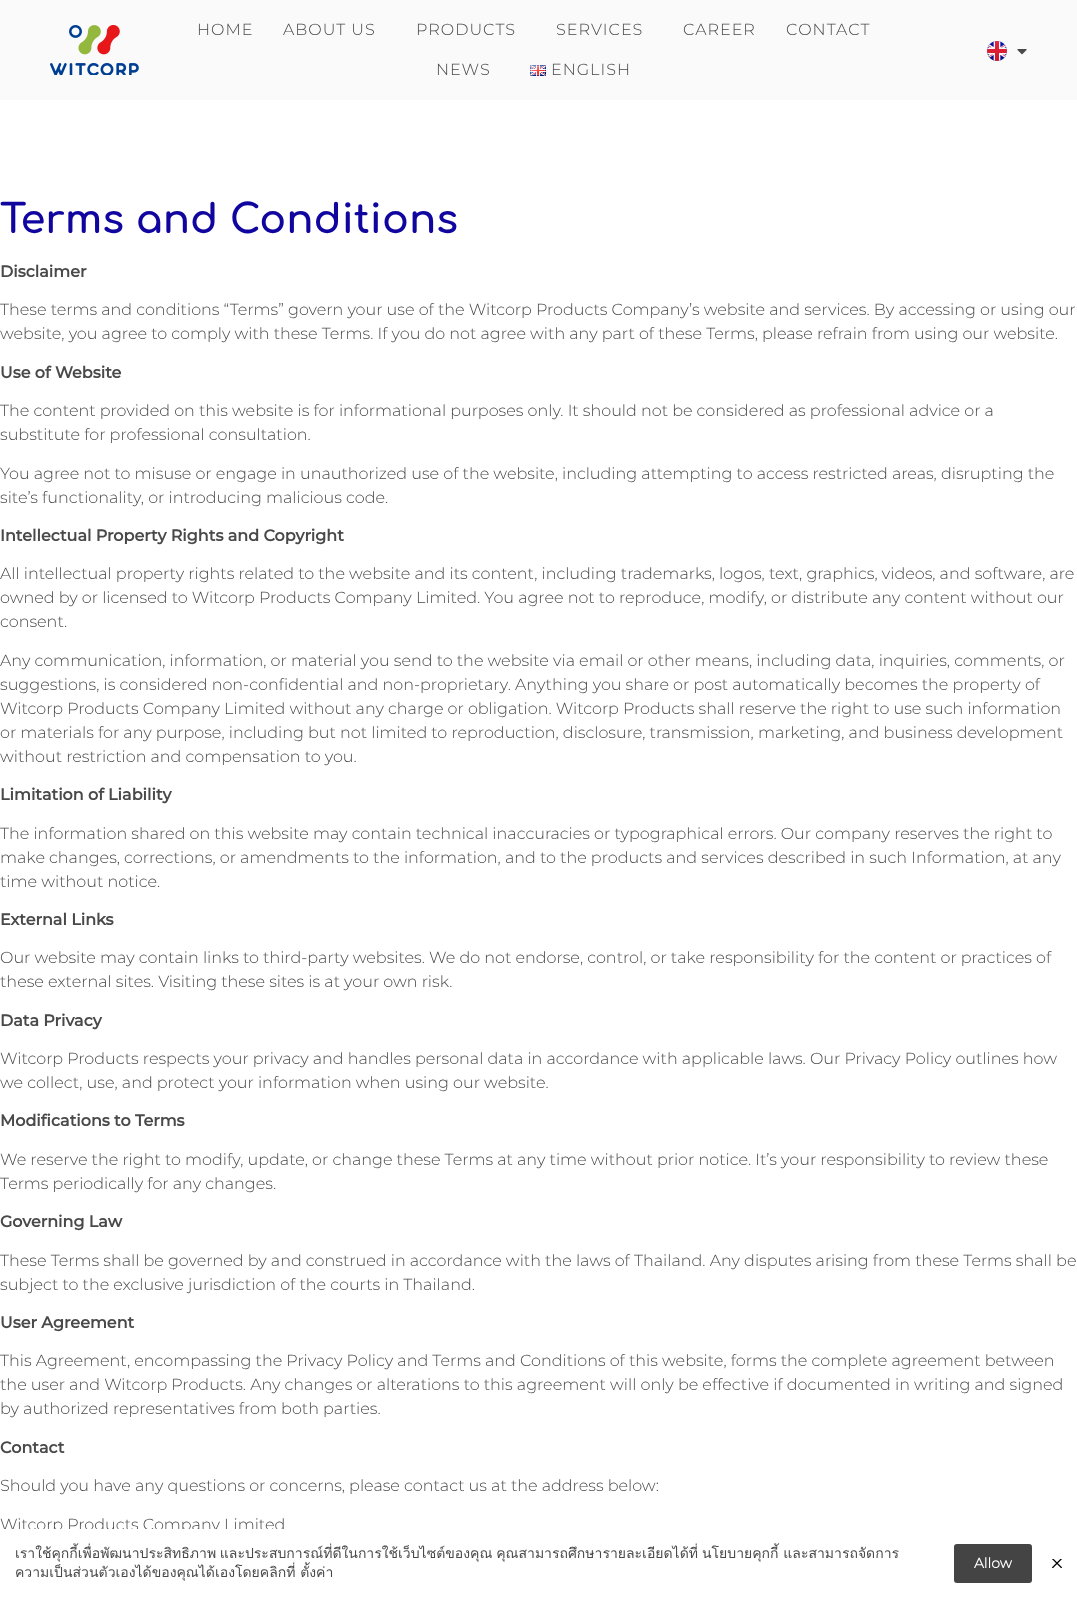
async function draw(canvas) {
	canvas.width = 1077;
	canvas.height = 1598;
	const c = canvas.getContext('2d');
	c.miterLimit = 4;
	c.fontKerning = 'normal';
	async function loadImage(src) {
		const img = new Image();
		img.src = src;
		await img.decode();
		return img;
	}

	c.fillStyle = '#fff';
	c.fillRect(0, 0, 1077, 1598);
	c.fillStyle = '#fafafa';
	c.fillRect(0, 0, 1077, 100);
	c.drawImage(await loadImage('img1.png'), 50, 25, 89, 50);
	c.letterSpacing = '1px';
	c.font = '300 16px Montserrat';
	c.fillStyle = '#494949';
	for (const [text, x, y] of [
		['HOME', 197, 35],
		['ABOUT US', 283, 35],
		['PRODUCTS', 416, 35],
		['SERVICES', 556, 35],
		['CAREER', 683, 35],
		['CONTACT', 786, 35],
		['NEWS', 436, 75],
	]) {
		c.fillText(text, x, y);
	}
	c.drawImage(await loadImage('img2.png'), 530, 65, 16, 11);
	c.fillText('ENGLISH', 551, 75);
	c.drawImage(await loadImage('img3.png'), 987, 41, 20, 20);
	c.drawImage(await loadImage('img4.png'), 1017, 49, 10, 6);
	c.letterSpacing = '0px';
	c.font = 'bold 40px Comfortaa';
	c.fillStyle = '#10069f';
	c.fillText('Terms and Conditions', 0, 233);
	c.font = 'bold 16px Montserrat';
	c.fillStyle = '#494949';
	c.fillText('Disclaimer', 0, 277);
	c.font = '300 16px Montserrat';
	c.fillText('These terms and conditions “Terms” govern your use of the Witcorp Products Company’s website and services. By accessing or using our', 0, 315);
	c.fillText('website, you agree to comply with these Terms. If you do not agree with any part of these Terms, please refrain from using our website.', 0, 339);
	c.font = 'bold 16px Montserrat';
	c.fillText('Use of Website', 0, 378);
	c.font = '300 16px Montserrat';
	for (const [text, x, y] of [
		['The content provided on this website is for informational purposes only. It should not be considered as professional advice or a', 0, 416],
		['substitute for professional consultation.', 0, 440],
		['You agree not to misuse or engage in unauthorized use of the website, including attempting to access restricted areas, disrupting the', 0, 479],
		['site’s functionality, or introducing malicious code.', 0, 503],
	]) {
		c.fillText(text, x, y);
	}
	c.font = 'bold 16px Montserrat';
	c.fillText('Intellectual Property Rights and Copyright', 0, 541);
	c.font = '300 16px Montserrat';
	for (const [text, x, y] of [
		['All intellectual property rights related to the website and its content, including trademarks, logos, text, graphics, videos, and software, are', 0, 579],
		['owned by or licensed to Witcorp Products Company Limited. You agree not to reproduce, modify, or distribute any content without our', 0, 603],
		['consent.', 0, 627],
		['Any communication, information, or material you send to the website via email or other means, including data, inquiries, comments, or', 0, 666],
		['suggestions, is considered non-confidential and non-proprietary. Anything you share or post automatically becomes the property of', 0, 690],
		['Witcorp Products Company Limited without any charge or obligation. Witcorp Products shall reserve the right to use such information', 0, 714],
		['or materials for any purpose, including but not limited to reproduction, disclosure, transmission, marketing, and business development', 0, 738],
		['without restriction and compensation to you.', 0, 762],
	]) {
		c.fillText(text, x, y);
	}
	c.font = 'bold 16px Montserrat';
	c.fillText('Limitation of Liability', 0, 800);
	c.font = '300 16px Montserrat';
	for (const [text, x, y] of [
		['The information shared on this website may contain technical inaccuracies or typographical errors. Our company reserves the right to', 0, 839],
		['make changes, corrections, or amendments to the information, and to the products and services described in such Information, at any', 0, 863],
		['time without notice.', 0, 887],
	]) {
		c.fillText(text, x, y);
	}
	c.font = 'bold 16px Montserrat';
	c.fillText('External Links', 0, 925);
	c.font = '300 16px Montserrat';
	c.fillText('Our website may contain links to third-party websites. We do not endorse, control, or take responsibility for the content or practices of', 0, 963);
	c.fillText('these external sites. Visiting these sites is at your own risk.', 0, 987);
	c.font = 'bold 16px Montserrat';
	c.fillText('Data Privacy', 0, 1026);
	c.font = '300 16px Montserrat';
	c.fillText('Witcorp Products respects your privacy and handles personal data in accordance with applicable laws. Our Privacy Policy outlines how', 0, 1064);
	c.fillText('we collect, use, and protect your information when using our website.', 0, 1088);
	c.font = 'bold 16px Montserrat';
	c.fillText('Modifications to Terms', 0, 1126);
	c.font = '300 16px Montserrat';
	c.fillText('We reserve the right to modify, update, or change these Terms at any time without prior notice. It’s your responsibility to review these', 0, 1165);
	c.fillText('Terms periodically for any changes.', 0, 1189);
	c.font = 'bold 16px Montserrat';
	c.fillText('Governing Law', 0, 1227);
	c.font = '300 16px Montserrat';
	c.fillText('These Terms shall be governed by and construed in accordance with the laws of Thailand. Any disputes arising from these Terms shall be', 0, 1266);
	c.fillText('subject to the exclusive jurisdiction of the courts in Thailand.', 0, 1290);
	c.font = 'bold 16px Montserrat';
	c.fillText('User Agreement', 0, 1328);
	c.font = '300 16px Montserrat';
	for (const [text, x, y] of [
		['This Agreement, encompassing the Privacy Policy and Terms and Conditions of this website, forms the complete agreement between', 0, 1366],
		['the user and Witcorp Products. Any changes or alterations to this agreement will only be effective if documented in writing and signed', 0, 1390],
		['by authorized representatives from both parties.', 0, 1414],
	]) {
		c.fillText(text, x, y);
	}
	c.font = 'bold 16px Montserrat';
	c.fillText('Contact', 0, 1453);
	c.font = '300 16px Montserrat';
	c.fillText('Should you have any questions or concerns, please contact us at the address below:', 0, 1491);
	c.fillText('Witcorp Products Company Limited', 0, 1530);
	c.fillStyle = '#fff';
	c.fillRect(4, 1529, 280, 5);
	c.wordSpacing = '-1px';
	c.font = '14px Loma';
	c.fillStyle = '#494949';
	c.fillText('เราใช้คุกกี้เพื่อพัฒนาประสิทธิภาพ และประสบการณ์ที่ดีในการใช้เว็บไซต์ของคุณ คุณสามารถศึกษารายละเอียดได้ที่', 15, 1558);
	c.wordSpacing = '0px';
	c.fillText('นโยบายคุกกี้ และสามารถจัดการ', 702, 1558);
	c.fillText('ความเป็นส่วนตัวเองได้ของคุณได้เองโดยคลิกที่ ตั้งค่า', 15, 1577);
	c.fillStyle = '#444';
	c.beginPath();
	c.roundRect(954, 1544, 78, 39, 3);
	c.fill();
	c.font = 'bold 14px "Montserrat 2"';
	c.fillStyle = '#fff';
	c.fillText('Allow', 974, 1568);
	c.drawImage(await loadImage('img5.png'), 1052, 1559, 10, 9);
}

draw(document.querySelector('canvas'));
